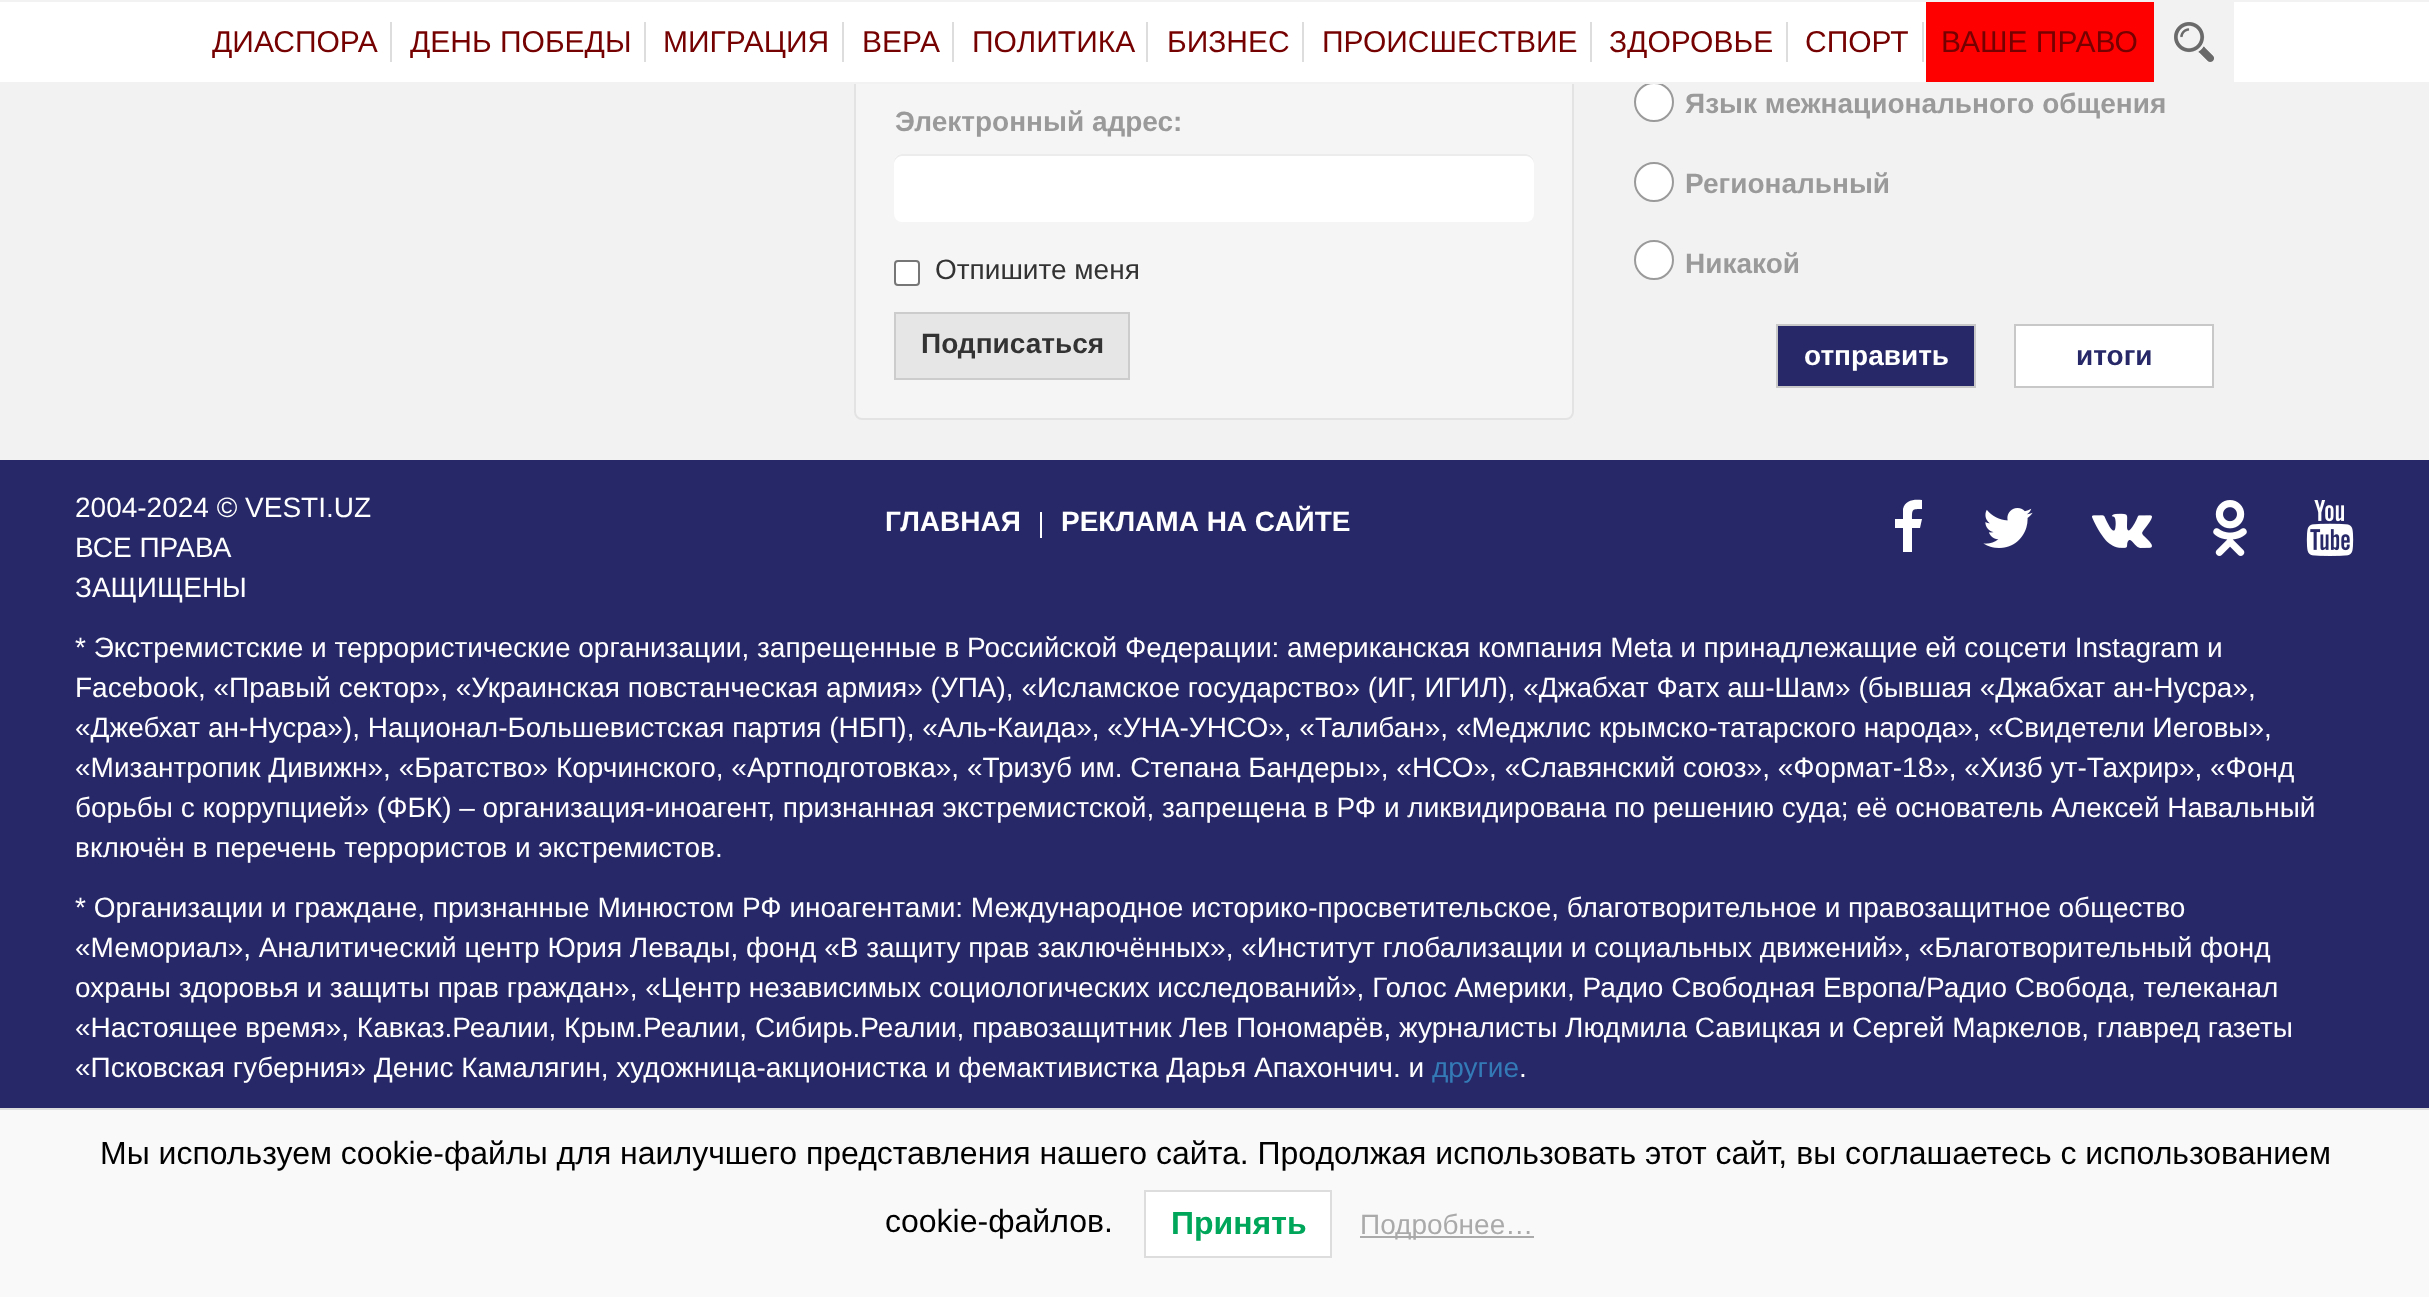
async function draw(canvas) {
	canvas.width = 2429;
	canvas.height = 1297;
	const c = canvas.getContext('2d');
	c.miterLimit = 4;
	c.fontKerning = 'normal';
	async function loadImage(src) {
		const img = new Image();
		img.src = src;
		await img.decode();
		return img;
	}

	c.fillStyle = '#272867';
	c.fillRect(0, 0, 2429, 1297);
	c.fillStyle = '#f2f2f2';
	c.fillRect(0, 84, 2429, 376);
	c.fillStyle = '#f5f5f5';
	c.beginPath();
	c.roundRect(855, -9, 718, 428, 7);
	c.fill();
	c.strokeStyle = '#e3e3e3';
	c.lineWidth = 2;
	c.stroke();
	c.fillStyle = '#fff';
	c.fillRect(0, 2, 2429, 80);
	c.fillStyle = '#f2f2f2';
	c.fillRect(0, 0, 2429, 2);
	c.fillStyle = '#fff';
	c.beginPath();
	c.arc(1654, 102, 19, 0, 2 * Math.PI);
	c.fill();
	c.strokeStyle = '#9a9a9a';
	c.stroke();
	c.fillStyle = '#f2f2f2';
	c.fillRect(0, 82, 2429, 2);
	c.font = '30px Liberation Sans';
	c.fillStyle = '#760101';
	c.fillText('ДИАСПОРА', 212, 52);
	c.fillStyle = '#ddd';
	c.fillRect(390, 22, 2, 40);
	c.fillStyle = '#760101';
	c.fillText('ДЕНЬ ПОБЕДЫ', 410, 52);
	c.fillStyle = '#ddd';
	c.fillRect(644, 22, 2, 40);
	c.fillStyle = '#760101';
	c.fillText('МИГРАЦИЯ', 663, 52);
	c.fillStyle = '#ddd';
	c.fillRect(842, 22, 2, 40);
	c.fillStyle = '#760101';
	c.fillText('ВЕРА', 862, 52);
	c.fillStyle = '#ddd';
	c.fillRect(952, 22, 2, 40);
	c.fillStyle = '#760101';
	c.fillText('ПОЛИТИКА', 972, 52);
	c.fillStyle = '#ddd';
	c.fillRect(1146, 22, 2, 40);
	c.fillStyle = '#760101';
	c.fillText('БИЗНЕС', 1167, 52);
	c.fillStyle = '#ddd';
	c.fillRect(1302, 22, 2, 40);
	c.fillStyle = '#760101';
	c.fillText('ПРОИСШЕСТВИЕ', 1322, 52);
	c.fillStyle = '#ddd';
	c.fillRect(1590, 22, 2, 40);
	c.fillStyle = '#760101';
	c.fillText('ЗДОРОВЬЕ', 1609, 52);
	c.fillStyle = '#ddd';
	c.fillRect(1786, 22, 2, 40);
	c.fillStyle = '#760101';
	c.fillText('СПОРТ', 1805, 52);
	c.fillStyle = '#f00';
	c.fillRect(1926, 2, 228, 80);
	c.fillStyle = '#ddd';
	c.fillRect(1922, 22, 2, 40);
	c.fillStyle = '#760101';
	c.fillText('ВАШЕ ПРАВО', 1941, 52);
	c.fillStyle = '#f2f2f2';
	c.fillRect(2154, 2, 80, 80);
	c.drawImage(await loadImage('img1.png'), 2174, 22, 40, 40);
	c.font = 'bold 28px Liberation Sans';
	c.fillStyle = '#9a9a9a';
	c.fillText('Электронный адрес:', 895, 131);
	c.fillStyle = '#fff';
	c.beginPath();
	c.roundRect(894, 154, 640, 68, 8);
	c.fill();
	c.fillStyle = '#ececec';
	c.beginPath();
	c.moveTo(902, 156);
	c.lineTo(1526, 156);
	c.bezierCurveTo(1530, 156, 1534, 160, 1534, 164);
	c.lineTo(1534, 162);
	c.bezierCurveTo(1534, 158, 1530, 154, 1526, 154);
	c.lineTo(902, 154);
	c.bezierCurveTo(898, 154, 894, 158, 894, 162);
	c.lineTo(894, 164);
	c.bezierCurveTo(894, 160, 898, 156, 902, 156);
	c.closePath();
	c.fill();
	c.fillStyle = '#fff';
	c.beginPath();
	c.roundRect(895, 261, 24, 24, 3);
	c.fill();
	c.strokeStyle = '#767676';
	c.stroke();
	c.font = '28px Liberation Sans';
	c.fillStyle = '#333';
	c.fillText('Отпишите меня', 935, 279);
	c.fillStyle = '#e6e6e6';
	c.beginPath();
	c.rect(895, 313, 234, 66);
	c.fill();
	c.strokeStyle = '#ccc';
	c.stroke();
	c.font = 'bold 28px Liberation Sans';
	c.fillStyle = '#333';
	c.fillText('Подписаться', 921, 353);
	c.fillStyle = '#9a9a9a';
	c.fillText('Язык межнационального общения', 1685, 113);
	c.fillStyle = '#fff';
	c.beginPath();
	c.arc(1654, 182, 19, 0, 2 * Math.PI);
	c.fill();
	c.strokeStyle = '#9a9a9a';
	c.stroke();
	c.fillStyle = '#9a9a9a';
	c.fillText('Региональный', 1685, 193);
	c.fillStyle = '#fff';
	c.beginPath();
	c.arc(1654, 260, 19, 0, 2 * Math.PI);
	c.fill();
	c.stroke();
	c.fillStyle = '#9a9a9a';
	c.fillText('Никакой', 1685, 273);
	c.fillStyle = '#272867';
	c.beginPath();
	c.rect(1777, 325, 198, 62);
	c.fill();
	c.strokeStyle = '#c8c8c8';
	c.stroke();
	c.fillStyle = '#fff';
	c.fillText('отправить', 1804, 365);
	c.beginPath();
	c.rect(2015, 325, 198, 62);
	c.fill();
	c.stroke();
	c.fillStyle = '#272867';
	c.fillText('итоги', 2076, 365);
	c.fillStyle = '#f9f9fa';
	c.fillRect(0, 1110, 2429, 187);
	c.font = '28px Liberation Sans';
	c.fillStyle = '#fff';
	for (const [text, x, y] of [
		['2004-2024 © VESTI.UZ', 75, 517],
		['ВСЕ ПРАВА', 75, 557],
		['ЗАЩИЩЕНЫ', 75, 597],
	]) {
		c.fillText(text, x, y);
	}
	c.font = 'bold 28px Liberation Sans';
	c.fillText('ГЛАВНАЯ', 885, 531);
	c.fillRect(1040, 512, 2, 26);
	c.fillText('РЕКЛАМА НА САЙТЕ', 1061, 531);
	c.beginPath();
	c.moveTo(1922, 500);
	c.lineTo(1922, 509);
	c.bezierCurveTo(1912, 509, 1912, 509, 1912, 519);
	c.lineTo(1922, 519);
	c.lineTo(1920, 528);
	c.lineTo(1912, 528);
	c.lineTo(1912, 552);
	c.lineTo(1903, 552);
	c.lineTo(1903, 528);
	c.lineTo(1895, 528);
	c.lineTo(1895, 519);
	c.lineTo(1903, 519);
	c.lineTo(1903, 509);
	c.bezierCurveTo(1905, 500, 1914, 499, 1922, 500);
	c.closePath();
	c.fill();
	c.drawImage(await loadImage('img2.png'), 1983, 508, 50, 40);
	c.drawImage(await loadImage('img3.png'), 2092, 513, 60, 35);
	c.drawImage(await loadImage('img4.png'), 2213, 500, 34, 56);
	c.drawImage(await loadImage('img5.png'), 2306, 500, 48, 56);
	c.font = '28px Liberation Sans';
	for (const [text, x, y] of [
		['* Экстремистские и террористические организации, запрещенные в Российской Федерации: американская компания Meta и принадлежащие ей соцсети Instagram и', 75, 657],
		['Facebook, «Правый сектор», «Украинская повстанческая армия» (УПА), «Исламское государство» (ИГ, ИГИЛ), «Джабхат Фатх аш-Шам» (бывшая «Джабхат ан-Нусра»,', 75, 697],
		['«Джебхат ан-Нусра»), Национал-Большевистская партия (НБП), «Аль-Каида», «УНА-УНСО», «Талибан», «Меджлис крымско-татарского народа», «Свидетели Иеговы»,', 75, 737],
		['«Мизантропик Дивижн», «Братство» Корчинского, «Артподготовка», «Тризуб им. Степана Бандеры», «НСО», «Славянский союз», «Формат-18», «Хизб ут-Тахрир», «Фонд', 75, 777],
		['борьбы с коррупцией» (ФБК) – организация-иноагент, признанная экстремистской, запрещена в РФ и ликвидирована по решению суда; её основатель Алексей Навальный', 75, 817],
		['включён в перечень террористов и экстремистов.', 75, 857],
		['* Организации и граждане, признанные Минюстом РФ иноагентами: Международное историко-просветительское, благотворительное и правозащитное общество', 75, 917],
		['«Мемориал», Аналитический центр Юрия Левады, фонд «В защиту прав заключённых», «Институт глобализации и социальных движений», «Благотворительный фонд', 75, 957],
		['охраны здоровья и защиты прав граждан», «Центр независимых социологических исследований», Голос Америки, Радио Свободная Европа/Радио Свобода, телеканал', 75, 997],
		['«Настоящее время», Кавказ.Реалии, Крым.Реалии, Сибирь.Реалии, правозащитник Лев Пономарёв, журналисты Людмила Савицкая и Сергей Маркелов, главред газеты', 75, 1037],
		['«Псковская губерния» Денис Камалягин, художница-акционистка и фемактивистка Дарья Апахончич. и', 75, 1077],
	]) {
		c.fillText(text, x, y);
	}
	c.fillStyle = '#337ab7';
	c.fillText('другие', 1432, 1077);
	c.fillStyle = '#fff';
	c.fillText('.', 1519, 1077);
	c.fillStyle = '#ddd';
	c.fillRect(0, 1108, 2429, 2);
	c.font = '32px Liberation Sans';
	c.fillStyle = '#000';
	c.fillText('Мы используем cookie-файлы для наилучшего представления нашего сайта. Продолжая использовать этот сайт, вы соглашаетесь с использованием', 100, 1164);
	c.fillText('cookie-файлов.', 885, 1232);
	c.fillStyle = '#fff';
	c.beginPath();
	c.rect(1145, 1191, 186, 66);
	c.fill();
	c.strokeStyle = '#ddd';
	c.stroke();
	c.font = 'bold 32px Liberation Sans';
	c.fillStyle = '#00a65a';
	c.fillText('Принять', 1171, 1234);
	c.fillStyle = '#aaa';
	c.fillRect(1360, 1236, 174, 2);
	c.font = '28px Liberation Sans';
	c.fillText('Подробнее…', 1360, 1234);
}

draw(document.querySelector('canvas'));
